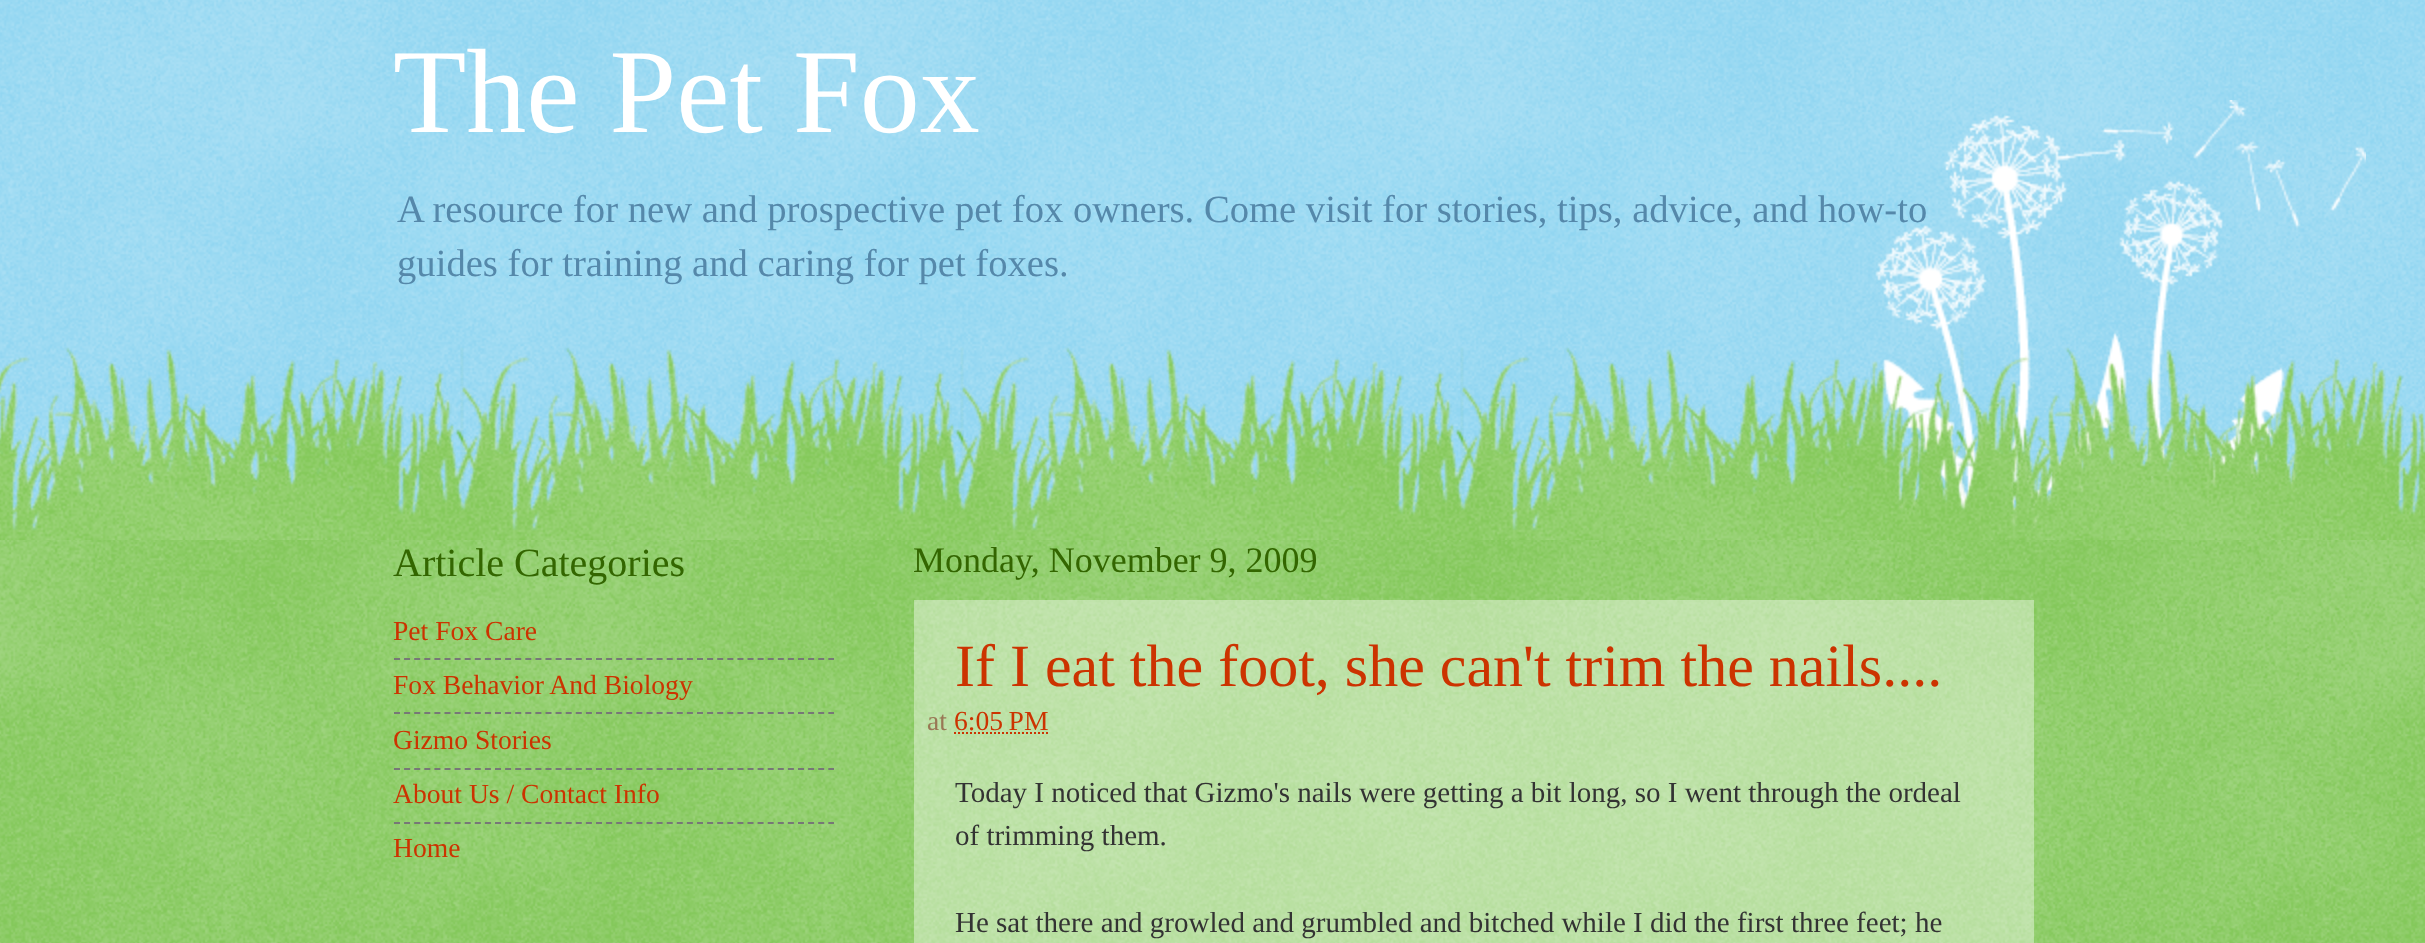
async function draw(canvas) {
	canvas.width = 2425;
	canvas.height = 943;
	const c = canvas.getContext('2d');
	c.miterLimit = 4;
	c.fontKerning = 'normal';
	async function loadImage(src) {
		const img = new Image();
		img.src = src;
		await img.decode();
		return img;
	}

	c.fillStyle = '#7ce';
	c.fillRect(0, 0, 2425, 943);
	c.drawImage(await loadImage('img1.png'), 0, 0, 2425, 531);
	c.font = '120px Liberation Serif';
	c.fillStyle = '#fff';
	c.fillText('The Pet Fox', 393, 132);
	c.font = '38.65px Liberation Serif';
	c.fillStyle = '#58a';
	c.fillText('A resource for new and prospective pet fox owners. Come visit for stories, tips, advice, and how-to', 397, 222);
	c.fillText('guides for training and caring for pet foxes.', 397, 276);
	c.fillStyle = '#6b3';
	c.fillRect(0, 540, 2425, 403);
	c.drawImage(await loadImage('img2.png'), 0, 540, 2425, 403);
	c.drawImage(await loadImage('img3.png'), 1866, 100, 500, 431);
	c.drawImage(await loadImage('img4.png'), 0, 347, 2425, 193);
	c.font = '40px Liberation Serif';
	c.fillStyle = '#360';
	c.fillText('Article Categories', 393, 576);
	c.font = '27.6px Liberation Serif';
	c.fillStyle = '#c30';
	c.fillText('Pet Fox Care', 393, 640);
	c.beginPath();
	c.moveTo(394, 659);
	c.lineTo(834, 659);
	c.strokeStyle = '#777';
	c.lineWidth = 2;
	c.setLineDash([6, 4.1]);
	c.stroke();
	c.fillText('Fox Behavior And Biology', 393, 694);
	c.beginPath();
	c.moveTo(394, 713);
	c.lineTo(834, 713);
	c.stroke();
	c.fillText('Gizmo Stories', 393, 749);
	c.beginPath();
	c.moveTo(394, 769);
	c.lineTo(834, 769);
	c.stroke();
	c.fillText('About Us / Contact Info', 393, 803);
	c.beginPath();
	c.moveTo(394, 823);
	c.lineTo(834, 823);
	c.stroke();
	c.fillText('Home', 393, 857);
	c.font = '36px Liberation Serif';
	c.fillStyle = '#360';
	c.fillText('Monday, November 9, 2009', 913, 572);
	c.fillStyle = '#ffffff66';
	c.fillRect(914, 600, 1120, 343);
	c.font = '60px Liberation Serif';
	c.fillStyle = '#c30';
	c.fillText('If I eat the foot, she can\'t trim the nails....', 955, 686);
	c.font = '27.6px Liberation Serif';
	c.fillStyle = '#975';
	c.fillText('at', 927, 730);
	c.fillStyle = '#c30';
	c.fillText('6:05 PM', 954, 730);
	c.beginPath();
	c.moveTo(954, 733);
	c.lineTo(1048.5, 733);
	c.strokeStyle = '#c30';
	c.setLineDash([2, 2]);
	c.stroke();
	c.font = '29px Liberation Serif';
	c.fillStyle = '#333';
	for (const [text, x, y] of [
		['Today I noticed that Gizmo\'s nails were getting a bit long, so I went through the ordeal', 955, 802],
		['of trimming them.', 955, 845],
		['He sat there and growled and grumbled and bitched while I did the first three feet; he', 955, 932],
	]) {
		c.fillText(text, x, y);
	}
}

draw(document.querySelector('canvas'));
